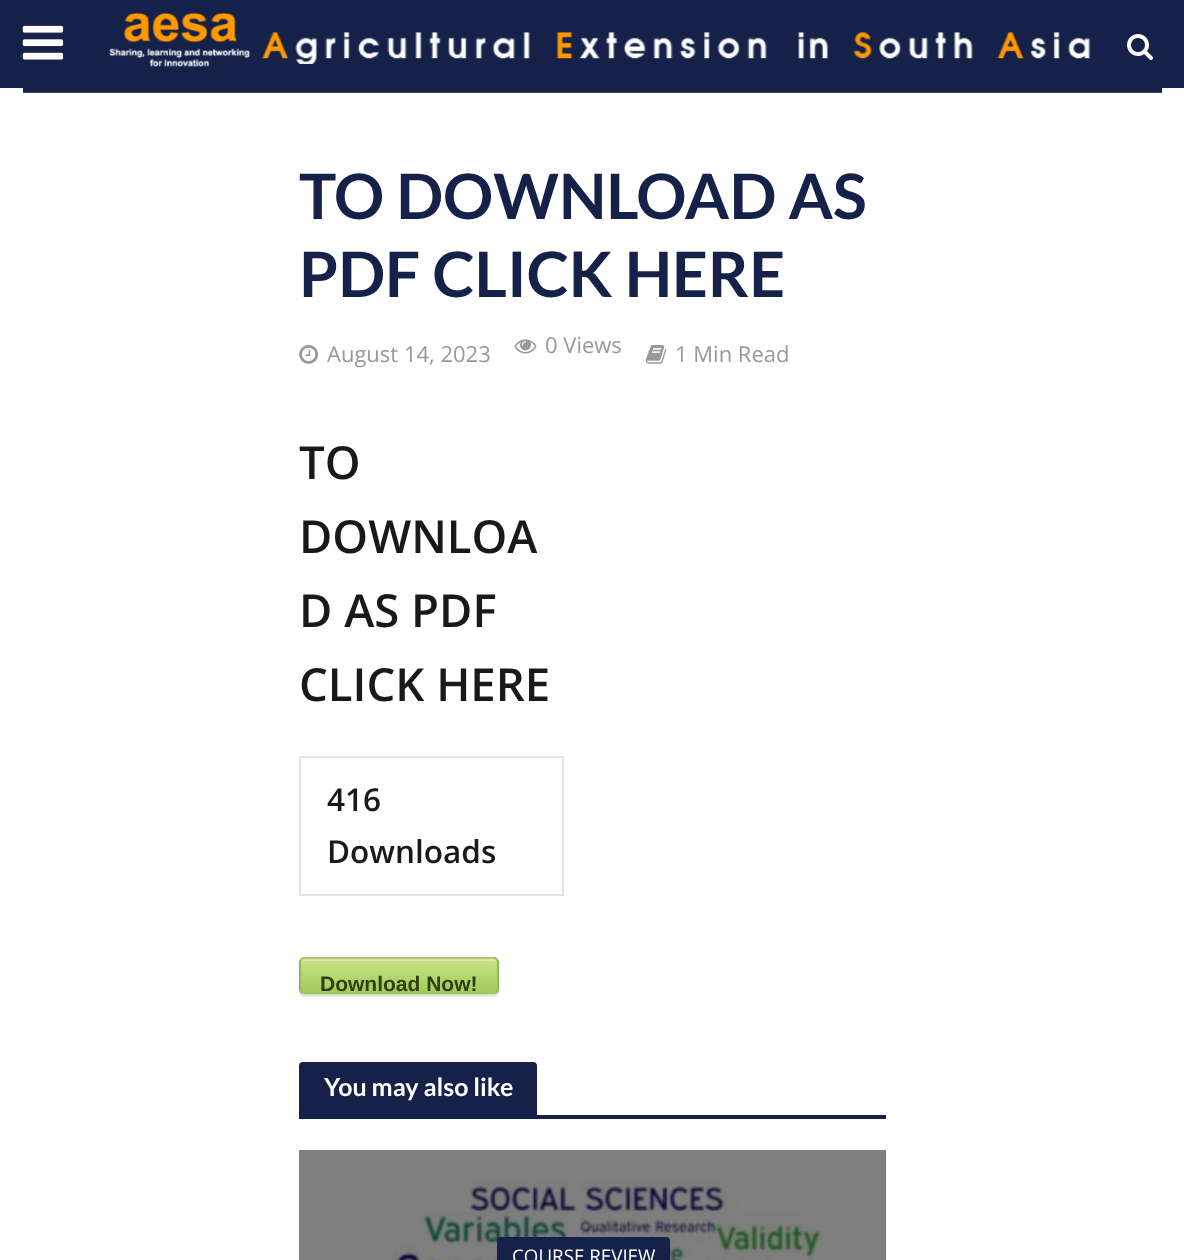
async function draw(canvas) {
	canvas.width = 1184;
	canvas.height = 1260;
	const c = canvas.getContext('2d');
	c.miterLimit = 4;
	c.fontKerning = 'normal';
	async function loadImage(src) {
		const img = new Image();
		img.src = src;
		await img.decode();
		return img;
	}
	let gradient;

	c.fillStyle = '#fff';
	c.fillRect(0, 0, 1184, 1260);
	c.fillStyle = '#152149';
	c.fillRect(0, 0, 1184, 88);
	c.drawImage(await loadImage('img1.png'), 23, 13, 1139, 80);
	c.drawImage(await loadImage('img2.png'), 22, 25, 42, 35);
	c.drawImage(await loadImage('img3.png'), 1127, 34, 26, 26);
	c.font = 'bold 62.75px Lato';
	c.fillText('TO DOWNLOAD AS', 299, 219);
	c.fillText('PDF CLICK HERE', 299, 297);
	c.drawImage(await loadImage('img4.png'), 299, 345, 20, 19);
	c.font = '22px Open Sans';
	c.fillStyle = '#999';
	c.fillText('August 14, 2023', 327, 362);
	c.drawImage(await loadImage('img5.png'), 514, 339, 23, 15);
	c.fillText('0 Views', 545, 353);
	c.drawImage(await loadImage('img6.png'), 645, 345, 22, 19);
	c.fillText('1 Min Read', 675, 362);
	c.font = '600 45.5px Open Sans';
	c.fillStyle = '#191919';
	for (const [text, x, y] of [
		['TO', 299, 479],
		['DOWNLOA', 299, 553],
		['D AS PDF', 299, 627],
		['CLICK HERE', 299, 701],
	]) {
		c.fillText(text, x, y);
	}
	c.strokeStyle = '#e8e4e3';
	c.lineWidth = 2;
	c.strokeRect(300, 757, 263, 138);
	c.font = '600 31.5px Open Sans';
	c.fillText('416', 327, 811);
	c.fillText('Downloads', 327, 863);
	c.fillStyle = '#d3d3d3';
	c.filter = 'blur(1px)';
	c.beginPath();
	c.roundRect(299, 959, 200, 37, 5);
	c.fill();
	c.filter = 'none';
	c.save();
	c.beginPath();
	c.roundRect(299, 957, 200, 37, 5);
	c.clip();
	gradient = c.createLinearGradient(301, 924, 301, 959);
	gradient.addColorStop(0, '#cae285');
	gradient.addColorStop(1, '#9fcb57');
	c.fillStyle = gradient;
	c.fillRect(299, 957, 200, 2);
	gradient = c.createLinearGradient(301, 959, 301, 994);
	gradient.addColorStop(0, '#cae285');
	gradient.addColorStop(1, '#9fcb57');
	c.fillStyle = gradient;
	c.beginPath();
	c.roundRect(299, 959, 200, 35, [0, 0, 5, 5]);
	c.fill();
	c.restore();
	c.fillStyle = '#d7e9a4';
	c.beginPath();
	c.moveTo(304, 961);
	c.lineTo(494, 961);
	c.bezierCurveTo(495, 961, 497, 962, 497, 964);
	c.lineTo(497, 962);
	c.bezierCurveTo(497, 961, 495, 959, 494, 959);
	c.lineTo(304, 959);
	c.bezierCurveTo(303, 959, 301, 961, 301, 962);
	c.lineTo(301, 964);
	c.bezierCurveTo(301, 962, 303, 961, 304, 961);
	c.closePath();
	c.fill();
	c.fillStyle = '#adc671';
	c.beginPath();
	c.moveTo(304, 959);
	c.lineTo(302, 960);
	c.lineTo(301, 959);
	c.lineTo(303, 957);
	c.lineTo(495, 957);
	c.lineTo(497, 959);
	c.lineTo(496, 960);
	c.lineTo(494, 959);
	c.closePath();
	c.fill();
	c.fillStyle = '#98b65b';
	c.beginPath();
	c.moveTo(499, 990.5);
	c.bezierCurveTo(498, 992.5, 495.5, 994, 494, 994);
	c.bezierCurveTo(495, 994, 497, 992, 497, 989);
	c.lineTo(497, 962);
	c.bezierCurveTo(497, 961.5, 496.5, 961, 496, 960);
	c.lineTo(497, 959);
	c.lineTo(499, 961);
	c.closePath();
	c.fill();
	c.beginPath();
	c.moveTo(299, 961);
	c.lineTo(301, 959);
	c.lineTo(302, 960);
	c.bezierCurveTo(301.5, 961, 301, 961.5, 301, 962);
	c.lineTo(301, 989);
	c.bezierCurveTo(301, 992, 303, 994, 304, 994);
	c.bezierCurveTo(302.5, 994, 300, 992.5, 299, 990.5);
	c.closePath();
	c.fill();
	c.font = 'bold 21px Liberation Sans';
	c.fillStyle = '#2f4014';
	c.fillText('Download Now!', 320, 991);
	c.fillStyle = '#152149';
	c.beginPath();
	c.roundRect(299, 1062, 238, 53, [4, 4, 0, 0]);
	c.fill();
	c.font = 'bold 25px Lato';
	c.fillStyle = '#fff';
	c.fillText('You may also like', 324, 1096);
	c.fillStyle = '#152149';
	c.fillRect(299, 1115, 587, 4);
	c.fillStyle = '#6e6e6e';
	c.fillRect(885, 1150, 1, 110);
	c.drawImage(await loadImage('img7.png'), 299, 1150, 587, 110);
	c.fillStyle = '#152149';
	c.beginPath();
	c.roundRect(497, 1237, 173, 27, 4);
	c.fill();
	c.font = '18.75px Open Sans';
	c.fillStyle = '#fff';
	c.fillText('COURSE REVIEW', 512, 1263);
}

draw(document.querySelector('canvas'));
